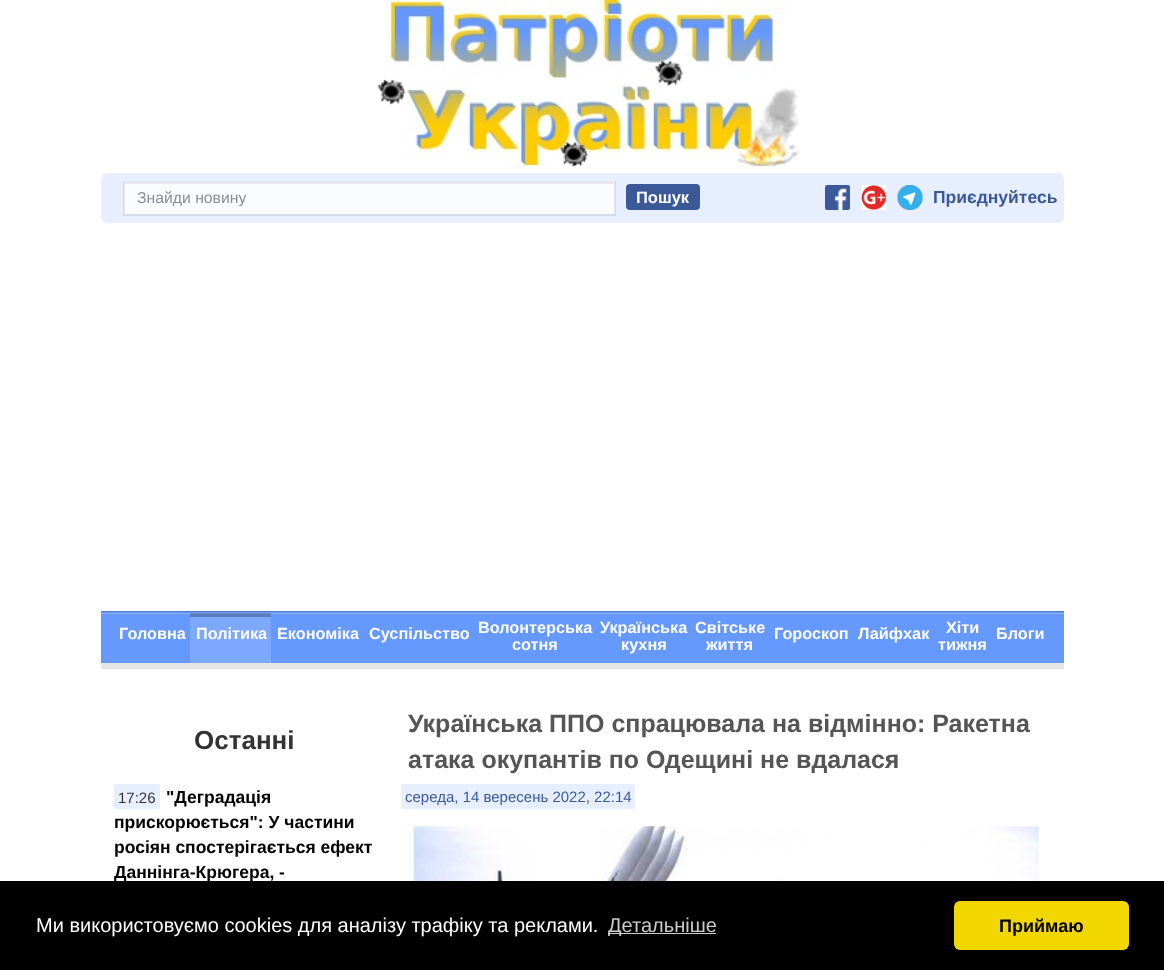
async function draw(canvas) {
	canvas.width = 1164;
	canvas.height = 970;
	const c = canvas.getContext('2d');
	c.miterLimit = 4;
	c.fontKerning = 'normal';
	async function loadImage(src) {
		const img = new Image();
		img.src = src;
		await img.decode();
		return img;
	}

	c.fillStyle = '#fff';
	c.fillRect(0, 0, 1164, 970);
	c.drawImage(await loadImage('img1.png'), 377, 0, 422, 167);
	c.fillStyle = '#e7efff';
	c.beginPath();
	c.roundRect(101, 173, 963, 50, 6);
	c.fill();
	c.fillStyle = '#2e30331a';
	c.filter = 'blur(0.5px)';
	c.beginPath();
	c.rect(123, 181, 493, 35);
	c.fill();
	c.filter = 'none';
	c.fillStyle = '#fafcff';
	c.fillRect(125, 184, 489, 30);
	c.save();
	c.beginPath();
	c.rect(124, 181, 491, 33);
	c.clip();
	c.fillStyle = '#e6e8eb';
	c.beginPath();
	c.moveTo(0, 58);
	c.lineTo(739, 58);
	c.lineTo(739, 338);
	c.lineTo(0, 338);
	c.closePath();
	c.moveTo(125, 184);
	c.lineTo(614, 184);
	c.lineTo(614, 214);
	c.lineTo(125, 214);
	c.closePath();
	c.fill('evenodd');
	c.restore();
	c.save();
	c.beginPath();
	c.rect(136, 189, 450, 17);
	c.clip();
	c.font = '15.75px Liberation Sans';
	c.fillStyle = '#8c8d91';
	c.fillText('Знайди новину', 137, 203);
	c.restore();
	c.fillStyle = '#3b5998';
	c.beginPath();
	c.roundRect(626, 184, 74, 26, 4);
	c.fill();
	c.font = 'bold 16.5px Liberation Sans';
	c.fillStyle = '#fff';
	c.fillText('Пошук', 636, 203);
	c.drawImage(await loadImage('img2.png'), 825, 185, 25, 25);
	c.drawImage(await loadImage('img3.png'), 861, 185, 26, 25);
	c.drawImage(await loadImage('img4.png'), 897, 185, 26, 25);
	c.font = 'bold 17.5px Liberation Sans';
	c.fillStyle = '#3b5998';
	c.fillText('Приєднуйтесь', 933, 203);
	c.fillStyle = '#e6e6e6';
	c.beginPath();
	c.moveTo(101, 618);
	c.lineTo(101, 669);
	c.lineTo(1064, 669);
	c.lineTo(1064, 618);
	c.lineTo(1064, 662);
	c.lineTo(101, 662);
	c.closePath();
	c.fill();
	for (const [x, y, w, h, color] of [
		[101, 612, 963, 51, '#6599fe'],
		[101, 613, 963, 1, '#84adfe'],
		[101, 611, 963, 1, '#517acb'],
	]) {
		c.fillStyle = color;
		c.fillRect(x, y, w, h);
	}
	c.font = 'bold 16.25px Liberation Sans';
	c.fillStyle = '#fff';
	c.fillText('Головна', 119, 639);
	c.fillStyle = '#ffffff26';
	c.fillRect(190, 613, 81, 50);
	c.fillStyle = '#00000040';
	c.fillRect(190, 613, 81, 4);
	c.fillStyle = '#fff';
	for (const [text, x, y] of [
		['Політика', 196, 639],
		['Економіка', 277, 639],
		['Суспільство', 369, 639],
		['Волонтерська', 478, 633],
		['сотня', 512, 650],
		['Українська', 600, 633],
		['кухня', 621, 650],
		['Світське', 695, 633],
		['життя', 706, 650],
		['Гороскоп', 774, 639],
		['Лайфхак', 858, 639],
		['Хіти', 946, 633],
		['тижня', 938, 650],
		['Блоги', 996, 639],
	]) {
		c.fillText(text, x, y);
	}
	c.font = 'bold 26px Liberation Sans';
	c.fillStyle = '#333';
	c.fillText('Останні', 194, 749);
	c.font = 'bold 17.5px Liberation Sans';
	c.fillStyle = '#010101';
	for (const [text, x, y] of [
		['"Деградація', 166, 803],
		['прискорюється": У частини', 114, 828],
		['росіян спостерігається ефект', 114, 853],
		['Даннінга-Крюгера, -', 114, 878],
	]) {
		c.fillText(text, x, y);
	}
	c.fillStyle = '#e7efff';
	c.beginPath();
	c.roundRect(114, 784, 46, 25, 2.5);
	c.fill();
	c.font = '15px Liberation Sans';
	c.fillStyle = '#333';
	c.fillText('17:26', 118, 803);
	c.font = 'bold 25px Liberation Sans';
	c.fillStyle = '#555';
	c.fillText('Українська ППО спрацювала на відмінно: Ракетна', 408, 732);
	c.fillText('атака окупантів по Одещині не вдалася', 408, 768);
	c.fillStyle = '#e7efff';
	c.beginPath();
	c.roundRect(401, 784, 234, 25, 2.5);
	c.fill();
	c.font = '15px Liberation Sans';
	c.fillStyle = '#3b5998';
	c.fillText('середа, 14 вересень 2022, 22:14', 405, 802);
	c.drawImage(await loadImage('img5.png'), 413, 826, 626, 55);
	c.fillStyle = '#000';
	c.fillRect(0, 881, 1164, 89);
	c.font = '20px Liberation Sans';
	c.fillStyle = '#fff';
	c.fillText('Ми використовуємо cookies для аналізу трафіку та реклами.', 36, 932);
	c.fillStyle = '#ccc';
	c.fillRect(608, 933, 108, 1);
	c.fillText('Детальніше', 608, 932);
	c.fillStyle = '#f1d600';
	c.beginPath();
	c.roundRect(954, 901, 175, 49, 6);
	c.fill();
	c.font = 'bold 18px Liberation Sans';
	c.fillStyle = '#010101';
	c.fillText('Приймаю', 999, 932);
}

draw(document.querySelector('canvas'));
